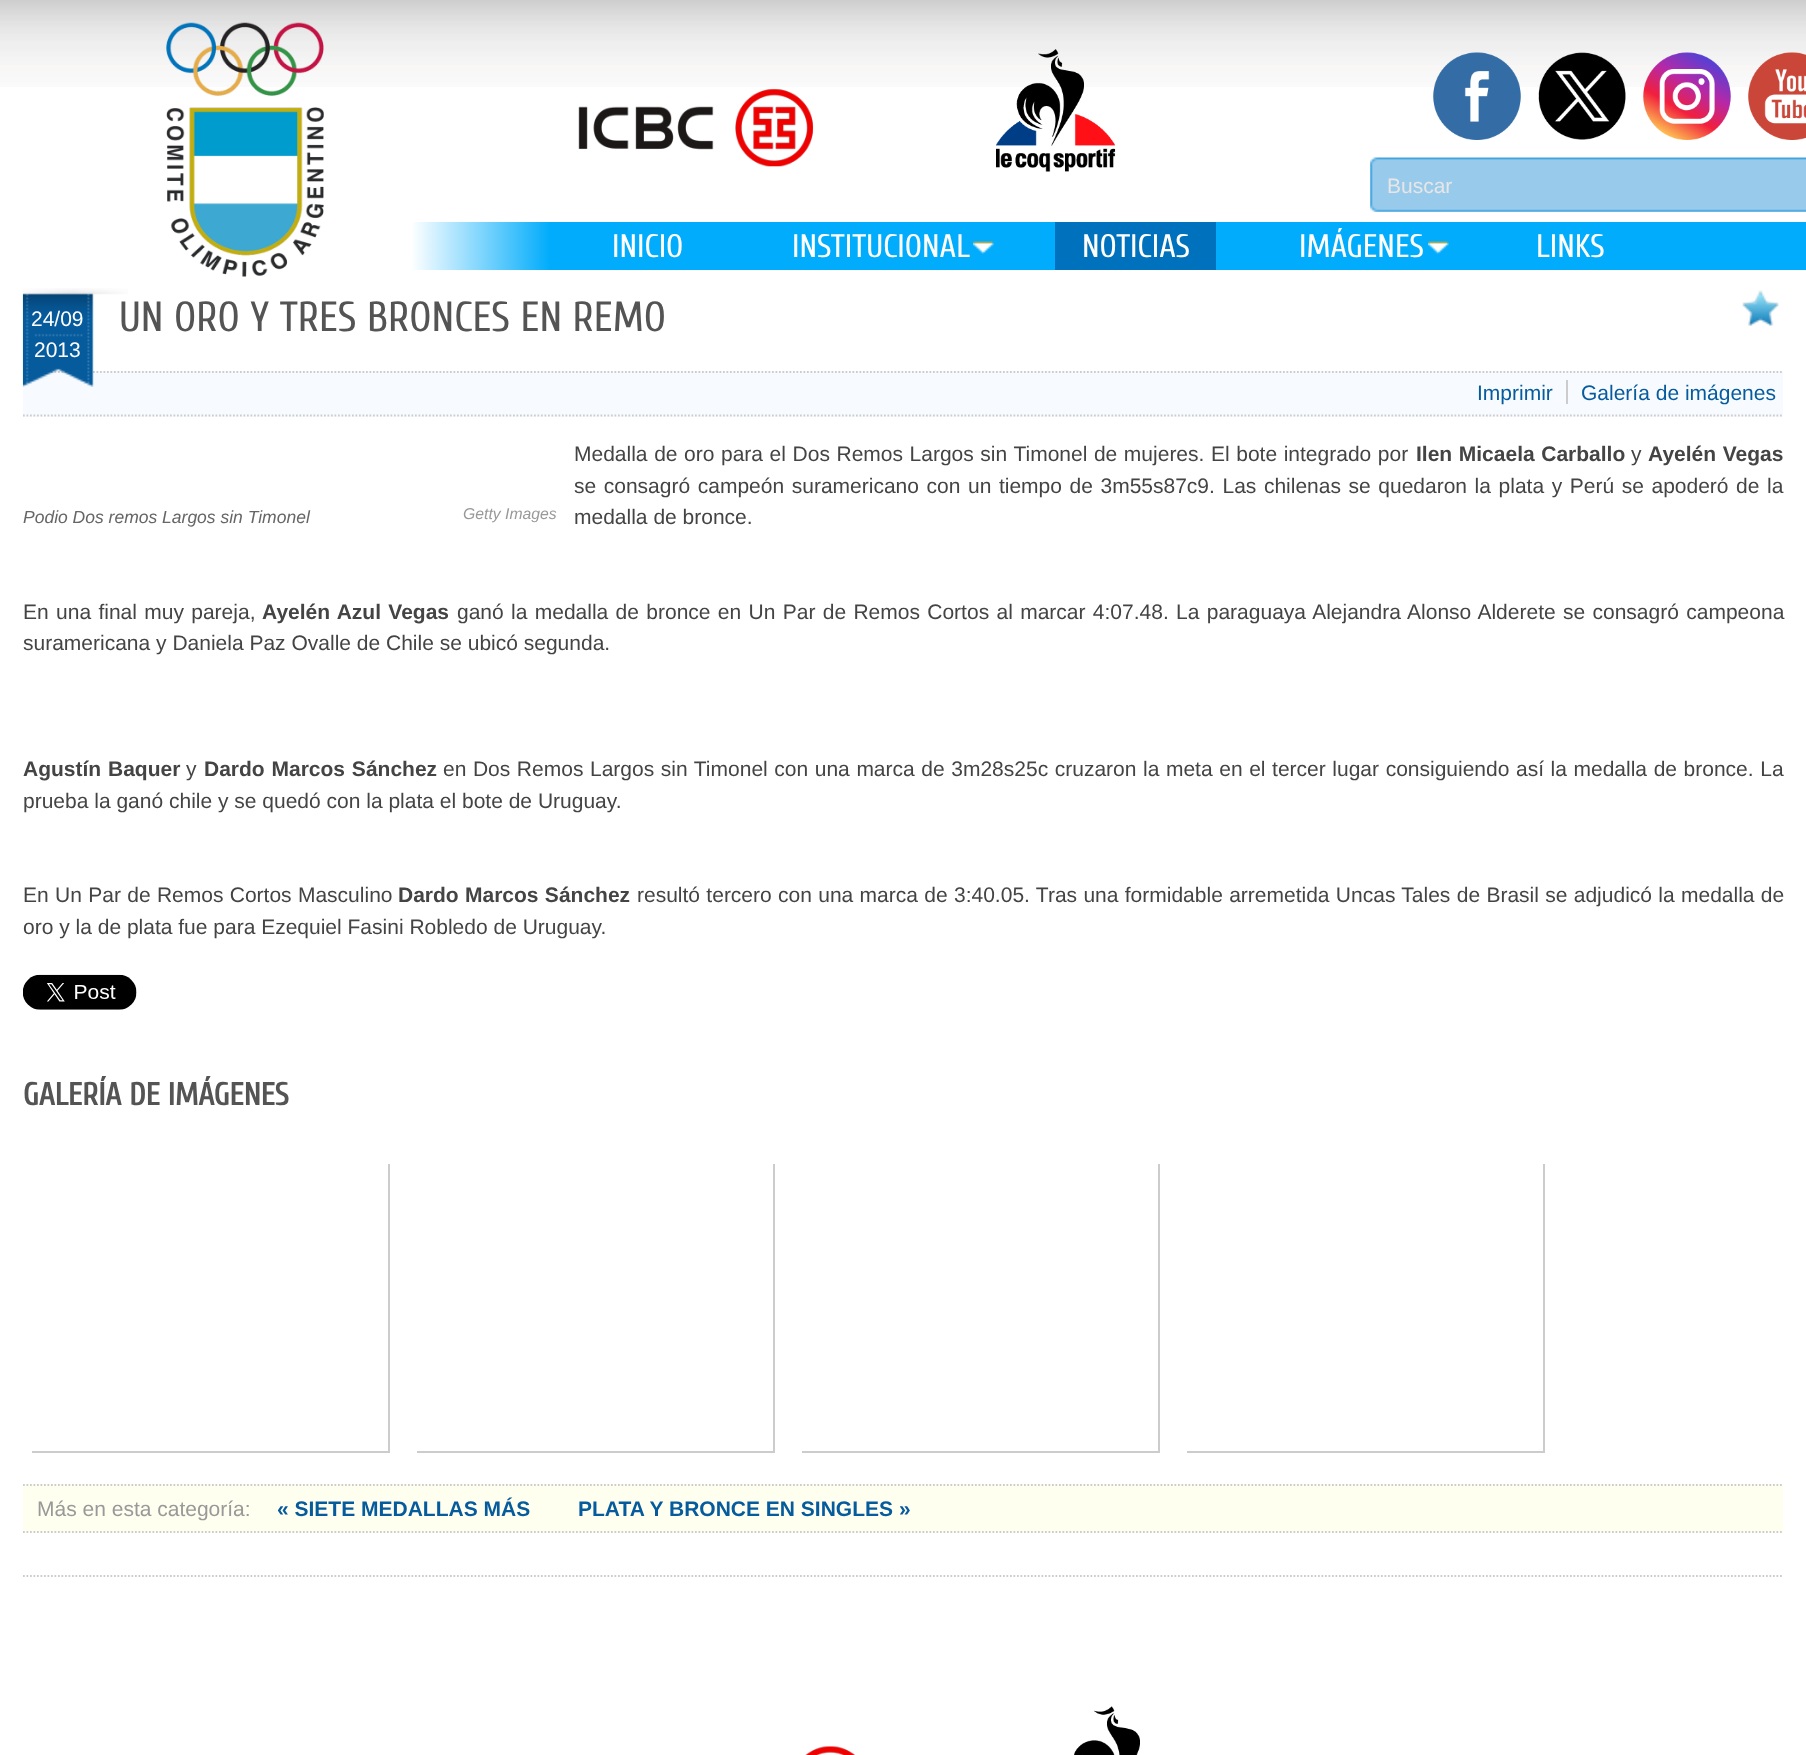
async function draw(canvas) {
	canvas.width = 1806;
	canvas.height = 1755;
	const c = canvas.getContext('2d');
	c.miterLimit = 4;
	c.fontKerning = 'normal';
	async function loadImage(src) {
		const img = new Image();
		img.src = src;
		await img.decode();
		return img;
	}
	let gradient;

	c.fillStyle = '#fff';
	c.fillRect(0, 0, 1806, 1755);
	c.drawImage(await loadImage('img1.png'), 0, 0, 1806, 87);
	c.drawImage(await loadImage('img2.png'), 166, 22, 158, 255);
	c.drawImage(await loadImage('img3.png'), 578, 88, 236, 79);
	c.drawImage(await loadImage('img4.png'), 996, 49, 120, 123);
	c.drawImage(await loadImage('img5.png'), 1433, 52, 88, 88);
	c.drawImage(await loadImage('img6.png'), 1538, 52, 88, 88);
	c.drawImage(await loadImage('img7.png'), 1643, 52, 88, 88);
	c.drawImage(await loadImage('img8.png'), 1748, 52, 58, 88);
	c.drawImage(await loadImage('img9.png'), 1370, 157, 436, 55);
	c.font = '21px Liberation Sans';
	c.fillStyle = '#e6e6e6';
	c.fillText('Buscar', 1387, 193);
	gradient = c.createLinearGradient(1806, 246, 411, 246);
	gradient.addColorStop(0.9, '#00acfb');
	gradient.addColorStop(1, '#fff');
	c.fillStyle = gradient;
	c.fillRect(412, 222, 1394, 48);
	c.font = '32.5px Cuprum';
	c.fillStyle = '#fff';
	c.fillText('INICIO', 612, 257);
	c.drawImage(await loadImage('img10.png'), 973, 241, 21, 13);
	c.fillText('INSTITUCIONAL', 792, 257);
	c.fillStyle = '#0071bc';
	c.fillRect(1055, 222, 161, 48);
	c.fillStyle = '#fff';
	c.fillText('NOTICIAS', 1082, 257);
	c.drawImage(await loadImage('img10.png'), 1428, 241, 21, 13);
	c.fillText('IMÁGENES', 1299, 257);
	c.fillText('LINKS', 1536, 257);
	c.drawImage(await loadImage('img11.png'), 1742, 290, 37, 36);
	c.beginPath();
	c.moveTo(23, 1576);
	c.lineTo(1783, 1576);
	c.strokeStyle = '#ccc';
	c.lineWidth = 1.8;
	c.setLineDash([1.75, 1.75]);
	c.stroke();
	c.fillStyle = '#f7fafe';
	c.fillRect(23, 371, 1760, 46);
	c.beginPath();
	c.moveTo(23, 372);
	c.lineTo(1783, 372);
	c.stroke();
	c.drawImage(await loadImage('img12.png'), 22, 288, 106, 99);
	c.font = '21px Liberation Sans';
	c.fillStyle = '#fff';
	c.fillText('24/09', 31, 326);
	c.fillText('2013', 34, 357);
	c.font = '42px Cuprum';
	c.fillStyle = '#545454';
	c.fillText('UN ORO Y TRES BRONCES EN REMO', 119, 331);
	c.beginPath();
	c.moveTo(23, 415.5);
	c.lineTo(1783, 415.5);
	c.stroke();
	c.font = '21px Liberation Sans';
	c.fillStyle = '#065b9d';
	c.fillText('Imprimir', 1477, 400);
	c.fillText('Galería de imágenes', 1581, 400);
	c.fillStyle = '#ccc';
	c.fillRect(1566, 380, 2, 24);
	c.wordSpacing = '0.75px';
	c.fillStyle = '#444';
	c.fillText('Medalla de oro para el Dos Remos Largos sin Timonel de mujeres. El bote integrado por', 574, 461);
	c.font = 'bold 21px Liberation Sans';
	c.fillText('Ilen Micaela Carballo', 1416, 461);
	c.wordSpacing = '0px';
	c.font = '21px Liberation Sans';
	c.fillText('y', 1631, 461);
	c.wordSpacing = '0.75px';
	c.font = 'bold 21px Liberation Sans';
	c.fillText('Ayelén Vegas', 1648, 461);
	c.wordSpacing = '1.75px';
	c.font = '21px Liberation Sans';
	c.fillText('se consagró campeón suramericano con un tiempo de 3m55s87c9. Las chilenas se quedaron la plata y Perú se apoderó de la', 574, 493);
	c.wordSpacing = '0px';
	c.fillText('medalla de bronce.', 574, 524);
	c.wordSpacing = '1.5px';
	c.fillText('En una final muy pareja,', 23, 619);
	c.font = 'bold 21px Liberation Sans';
	c.fillText('Ayelén Azul Vegas', 262, 619);
	c.font = '21px Liberation Sans';
	c.fillText('ganó la medalla de bronce en Un Par de Remos Cortos al marcar 4:07.48. La paraguaya Alejandra Alonso Alderete se consagró campeona', 457, 619);
	c.wordSpacing = '0px';
	c.fillText('suramericana y Daniela Paz Ovalle de Chile se ubicó segunda.', 23, 650);
	c.wordSpacing = '1px';
	c.font = 'bold 21px Liberation Sans';
	c.fillText('Agustín Baquer', 23, 776);
	c.wordSpacing = '0px';
	c.font = '21px Liberation Sans';
	c.fillText('y', 186, 776);
	c.wordSpacing = '1px';
	c.font = 'bold 21px Liberation Sans';
	c.fillText('Dardo Marcos Sánchez', 204, 776);
	c.wordSpacing = '0.75px';
	c.font = '21px Liberation Sans';
	c.fillText('en Dos Remos Largos sin Timonel con una marca de 3m28s25c cruzaron la meta en el tercer lugar consiguiendo así la medalla de bronce. La', 443, 776);
	c.wordSpacing = '0px';
	c.fillText('prueba la ganó chile y se quedó con la plata el bote de Uruguay.', 23, 808);
	c.wordSpacing = '0.5px';
	c.fillText('En Un Par de Remos Cortos Masculino', 23, 902);
	c.font = 'bold 21px Liberation Sans';
	c.fillText('Dardo Marcos Sánchez', 398, 902);
	c.font = '21px Liberation Sans';
	c.fillText('resultó tercero con una marca de 3:40.05. Tras una formidable arremetida Uncas Tales de Brasil se adjudicó la medalla de', 637, 902);
	c.wordSpacing = '0px';
	c.fillText('oro y la de plata fue para Ezequiel Fasini Robledo de Uruguay.', 23, 934);
	c.font = 'italic 17.5px Liberation Sans';
	c.fillStyle = '#666';
	c.fillText('Podio Dos remos Largos sin Timonel', 23, 523);
	c.font = 'italic 15.75px Liberation Sans';
	c.fillStyle = '#999';
	c.fillText('Getty Images', 463, 519);
	c.drawImage(await loadImage('img13.png'), 23, 974, 114, 36);
	c.font = 'bold 31.5px Cuprum';
	c.fillStyle = '#545454';
	c.fillText('GALERÍA DE IMÁGENES', 23, 1105);
	c.save();
	c.beginPath();
	c.rect(32, 1164, 367, 297);
	c.clip();
	c.lineWidth = 2;
	c.setLineDash([]);
	c.strokeRect(24, 1156, 365, 296);
	c.restore();
	c.save();
	c.beginPath();
	c.rect(417, 1164, 367, 297);
	c.clip();
	c.lineWidth = 2;
	c.setLineDash([]);
	c.strokeRect(409, 1156, 365, 296);
	c.restore();
	c.save();
	c.beginPath();
	c.rect(802, 1164, 367, 297);
	c.clip();
	c.lineWidth = 2;
	c.setLineDash([]);
	c.strokeRect(794, 1156, 365, 296);
	c.restore();
	c.save();
	c.beginPath();
	c.rect(1187, 1164, 367, 297);
	c.clip();
	c.lineWidth = 2;
	c.setLineDash([]);
	c.strokeRect(1179, 1156, 365, 296);
	c.restore();
	c.fillStyle = '#fffff0';
	c.fillRect(23, 1484, 1760, 49);
	c.beginPath();
	c.moveTo(23, 1485);
	c.lineTo(1783, 1485);
	c.stroke();
	c.beginPath();
	c.moveTo(23, 1532);
	c.lineTo(1783, 1532);
	c.stroke();
	c.font = '21px Liberation Sans';
	c.fillStyle = '#999';
	c.fillText('Más en esta categoría:', 37, 1516);
	c.font = 'bold 21px Liberation Sans';
	c.fillStyle = '#065b9d';
	c.fillText('« SIETE MEDALLAS MÁS', 277, 1516);
	c.fillText('PLATA Y BRONCE EN SINGLES »', 578, 1516);
	c.drawImage(await loadImage('img14.png'), 805, 1746, 50, 9);
	c.drawImage(await loadImage('img15.png'), 1074, 1706, 66, 49);
}

draw(document.querySelector('canvas'));
